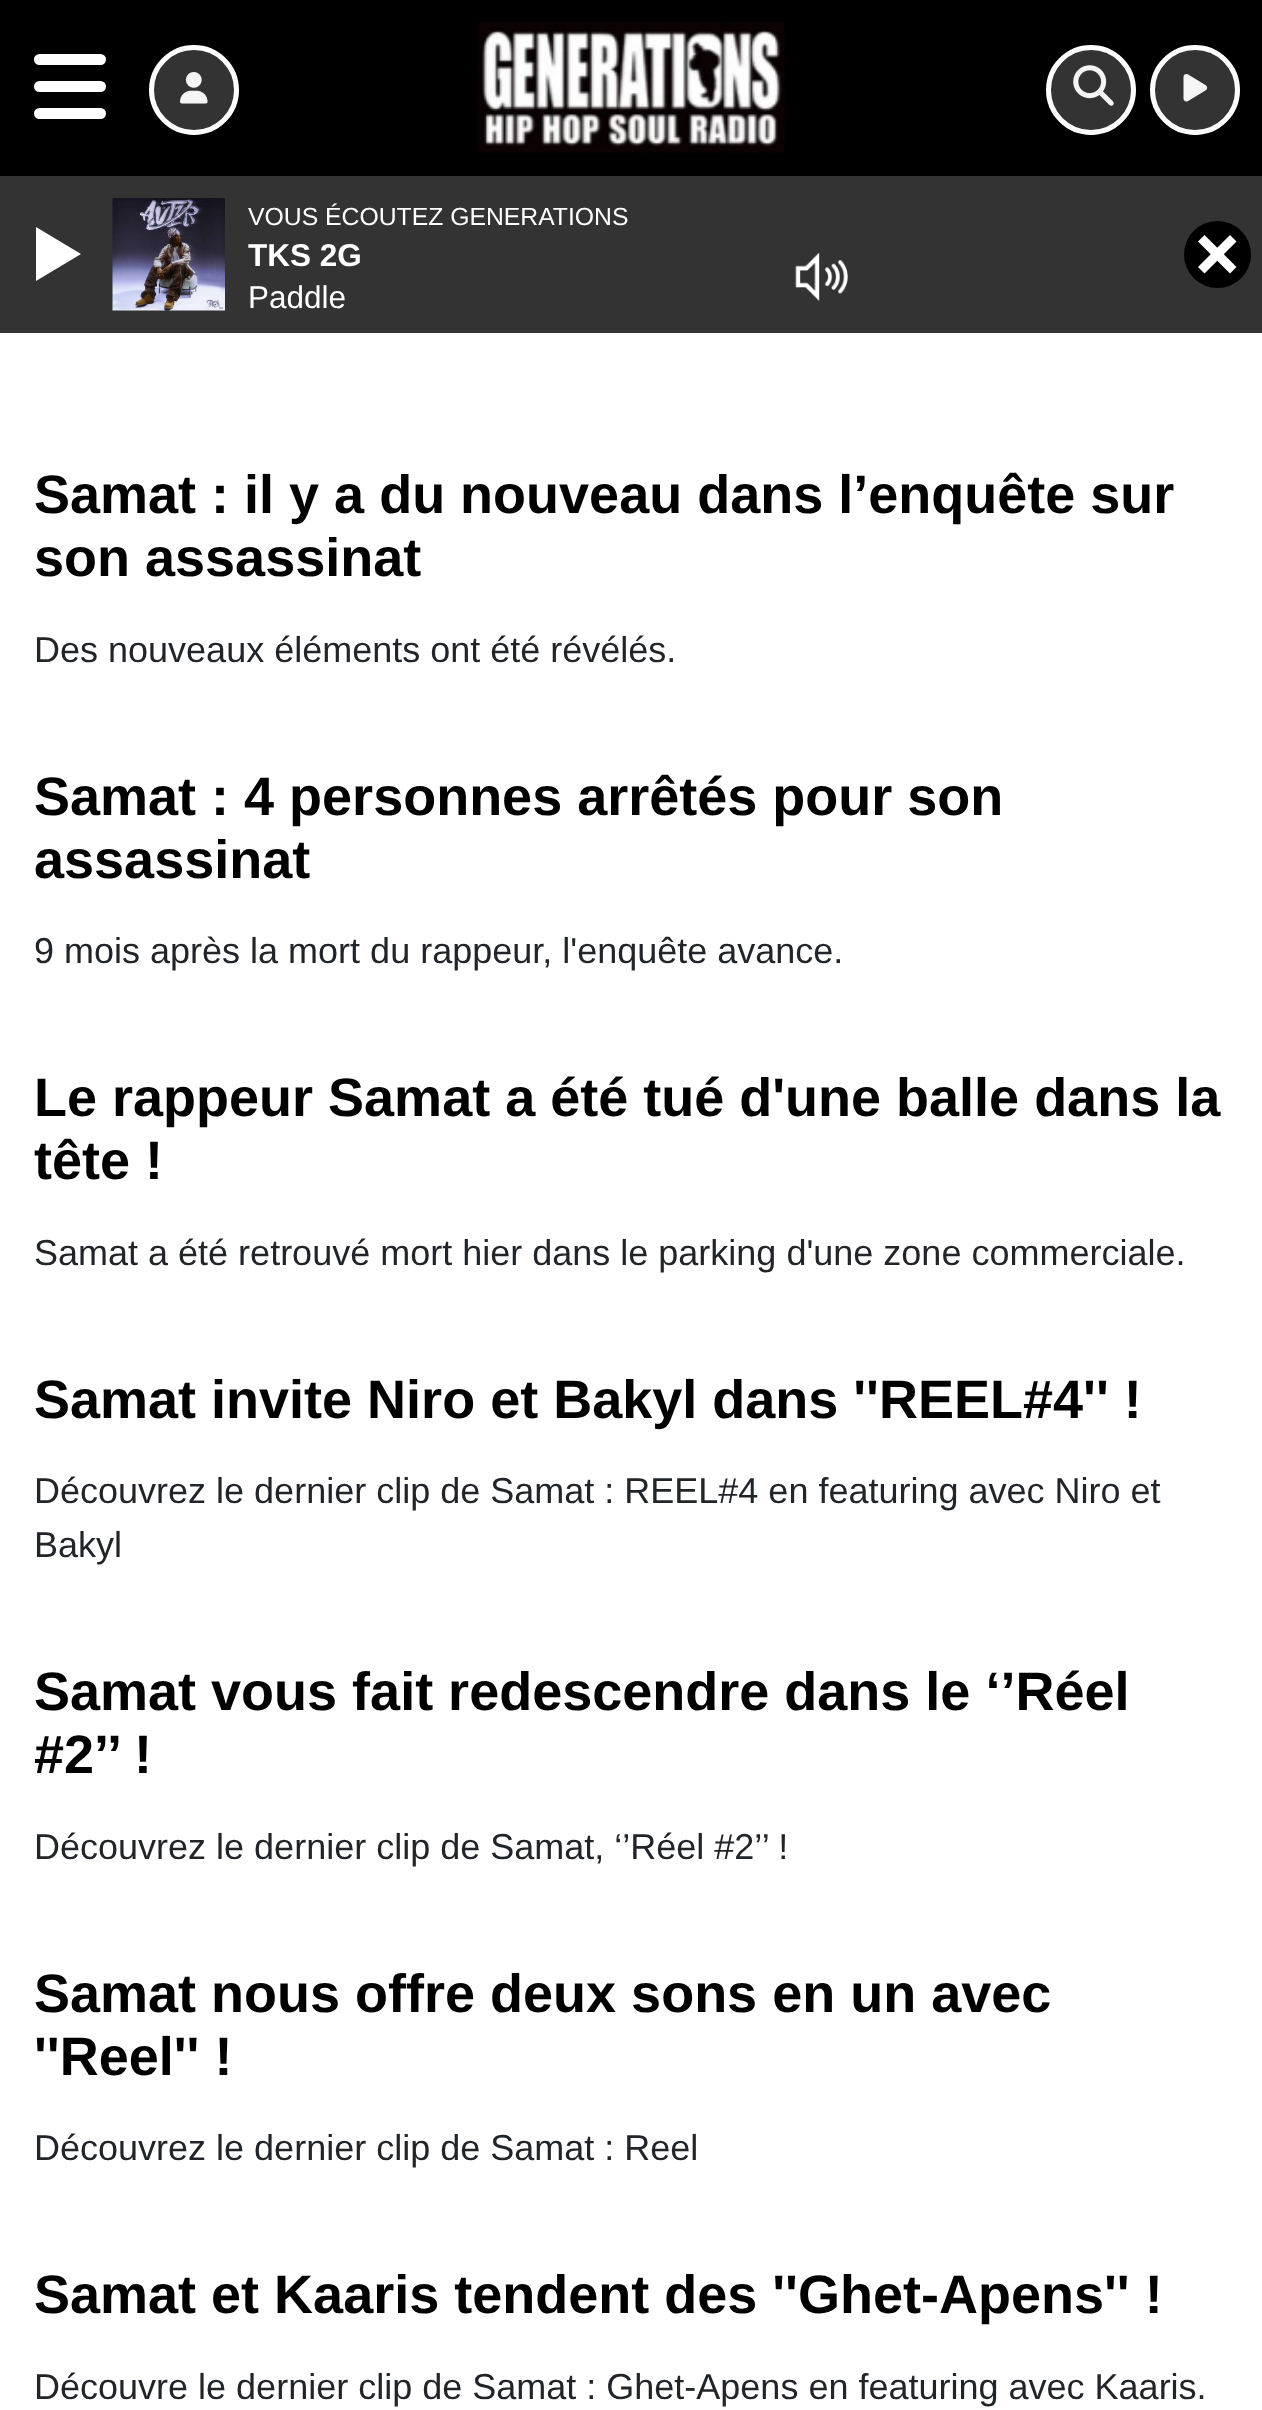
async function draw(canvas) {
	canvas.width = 1262;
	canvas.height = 2410;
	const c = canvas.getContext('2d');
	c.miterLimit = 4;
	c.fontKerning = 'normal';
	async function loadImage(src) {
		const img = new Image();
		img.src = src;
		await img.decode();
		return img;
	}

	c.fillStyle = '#fff';
	c.fillRect(0, 0, 1262, 2410);
	c.fillStyle = '#333';
	c.fillRect(0, 176, 1262, 157);
	c.drawImage(await loadImage('img1.png'), 112, 198, 113, 113);
	c.font = '24.75px Liberation Sans';
	c.fillStyle = '#fff';
	c.fillText('VOUS ÉCOUTEZ GENERATIONS', 248, 225);
	c.font = 'bold 31.5px Liberation Sans';
	c.fillText('TKS 2G', 248, 266);
	c.font = '31.5px Liberation Sans';
	c.fillText('Paddle', 248, 308);
	c.beginPath();
	c.moveTo(36, 281);
	c.lineTo(36, 227);
	c.lineTo(81, 254);
	c.closePath();
	c.fill();
	c.drawImage(await loadImage('img2.png'), 795, 252, 53, 49);
	c.fillStyle = '#000';
	c.beginPath();
	c.arc(1217.5, 254.5, 33.5, 0, 2 * Math.PI);
	c.fill();
	c.fillStyle = '#fff';
	c.beginPath();
	c.moveTo(1204.5, 235);
	c.lineTo(1236.5, 267);
	c.lineTo(1230, 273.5);
	c.lineTo(1198, 241.5);
	c.closePath();
	c.fill();
	c.beginPath();
	c.moveTo(1198, 267);
	c.lineTo(1230, 235);
	c.lineTo(1236.5, 241.5);
	c.lineTo(1204.5, 273.5);
	c.closePath();
	c.fill();
	c.fillStyle = '#000';
	c.fillRect(0, 0, 1262, 176);
	c.fillStyle = '#fff';
	c.beginPath();
	c.roundRect(34, 54, 72, 11, 5.5);
	c.fill();
	c.beginPath();
	c.roundRect(34, 81, 72, 11, 5.5);
	c.fill();
	c.beginPath();
	c.roundRect(34, 108, 72, 11, 5.5);
	c.fill();
	c.fillStyle = '#333';
	c.beginPath();
	c.arc(194, 90, 42.5, 0, 2 * Math.PI);
	c.fill();
	c.strokeStyle = '#fff';
	c.lineWidth = 5;
	c.stroke();
	c.drawImage(await loadImage('img3.png'), 180, 72, 28, 32);
	c.drawImage(await loadImage('img4.png'), 476, 22, 310, 131);
	c.beginPath();
	c.arc(1091, 90, 42.5, 0, 2 * Math.PI);
	c.fill();
	c.stroke();
	c.drawImage(await loadImage('img5.png'), 1073, 65, 41, 41);
	c.beginPath();
	c.arc(1195, 90, 42.5, 0, 2 * Math.PI);
	c.fill();
	c.stroke();
	c.drawImage(await loadImage('img6.png'), 1183, 74, 25, 28);
	c.font = 'bold 54px Liberation Sans';
	c.fillStyle = '#000';
	c.fillText('Samat : il y a du nouveau dans l’enquête sur', 34, 513);
	c.fillText('son assassinat', 34, 576);
	c.font = '36px Liberation Sans';
	c.fillStyle = '#212529';
	c.fillText('Des nouveaux éléments ont été révélés.', 34, 662);
	c.font = 'bold 54px Liberation Sans';
	c.fillStyle = '#000';
	c.fillText('Samat : 4 personnes arrêtés pour son', 34, 815);
	c.fillText('assassinat', 34, 878);
	c.font = '36px Liberation Sans';
	c.fillStyle = '#212529';
	c.fillText('9 mois après la mort du rappeur, l\'enquête avance.', 34, 963);
	c.font = 'bold 54px Liberation Sans';
	c.fillStyle = '#000';
	c.fillText('Le rappeur Samat a été tué d\'une balle dans la', 34, 1116);
	c.fillText('tête !', 34, 1179);
	c.font = '36px Liberation Sans';
	c.fillStyle = '#212529';
	c.fillText('Samat a été retrouvé mort hier dans le parking d\'une zone commerciale.', 34, 1265);
	c.font = 'bold 54px Liberation Sans';
	c.fillStyle = '#000';
	c.fillText('Samat invite Niro et Bakyl dans \'\'REEL#4\'\' !', 34, 1418);
	c.font = '36px Liberation Sans';
	c.fillStyle = '#212529';
	c.fillText('Découvrez le dernier clip de Samat : REEL#4 en featuring avec Niro et', 34, 1503);
	c.fillText('Bakyl', 34, 1557);
	c.font = 'bold 54px Liberation Sans';
	c.fillStyle = '#000';
	c.fillText('Samat vous fait redescendre dans le ‘’Réel', 34, 1710);
	c.fillText('#2’’ !', 34, 1773);
	c.font = '36px Liberation Sans';
	c.fillStyle = '#212529';
	c.fillText('Découvrez le dernier clip de Samat, ‘’Réel #2’’ !', 34, 1859);
	c.font = 'bold 54px Liberation Sans';
	c.fillStyle = '#000';
	c.fillText('Samat nous offre deux sons en un avec', 34, 2012);
	c.fillText('\'\'Reel\'\' !', 34, 2075);
	c.font = '36px Liberation Sans';
	c.fillStyle = '#212529';
	c.fillText('Découvrez le dernier clip de Samat : Reel', 34, 2160);
	c.font = 'bold 54px Liberation Sans';
	c.fillStyle = '#000';
	c.fillText('Samat et Kaaris tendent des \'\'Ghet-Apens\'\' !', 34, 2313);
	c.font = '36px Liberation Sans';
	c.fillStyle = '#212529';
	c.fillText('Découvre le dernier clip de Samat : Ghet-Apens en featuring avec Kaaris.', 34, 2399);
}

draw(document.querySelector('canvas'));
